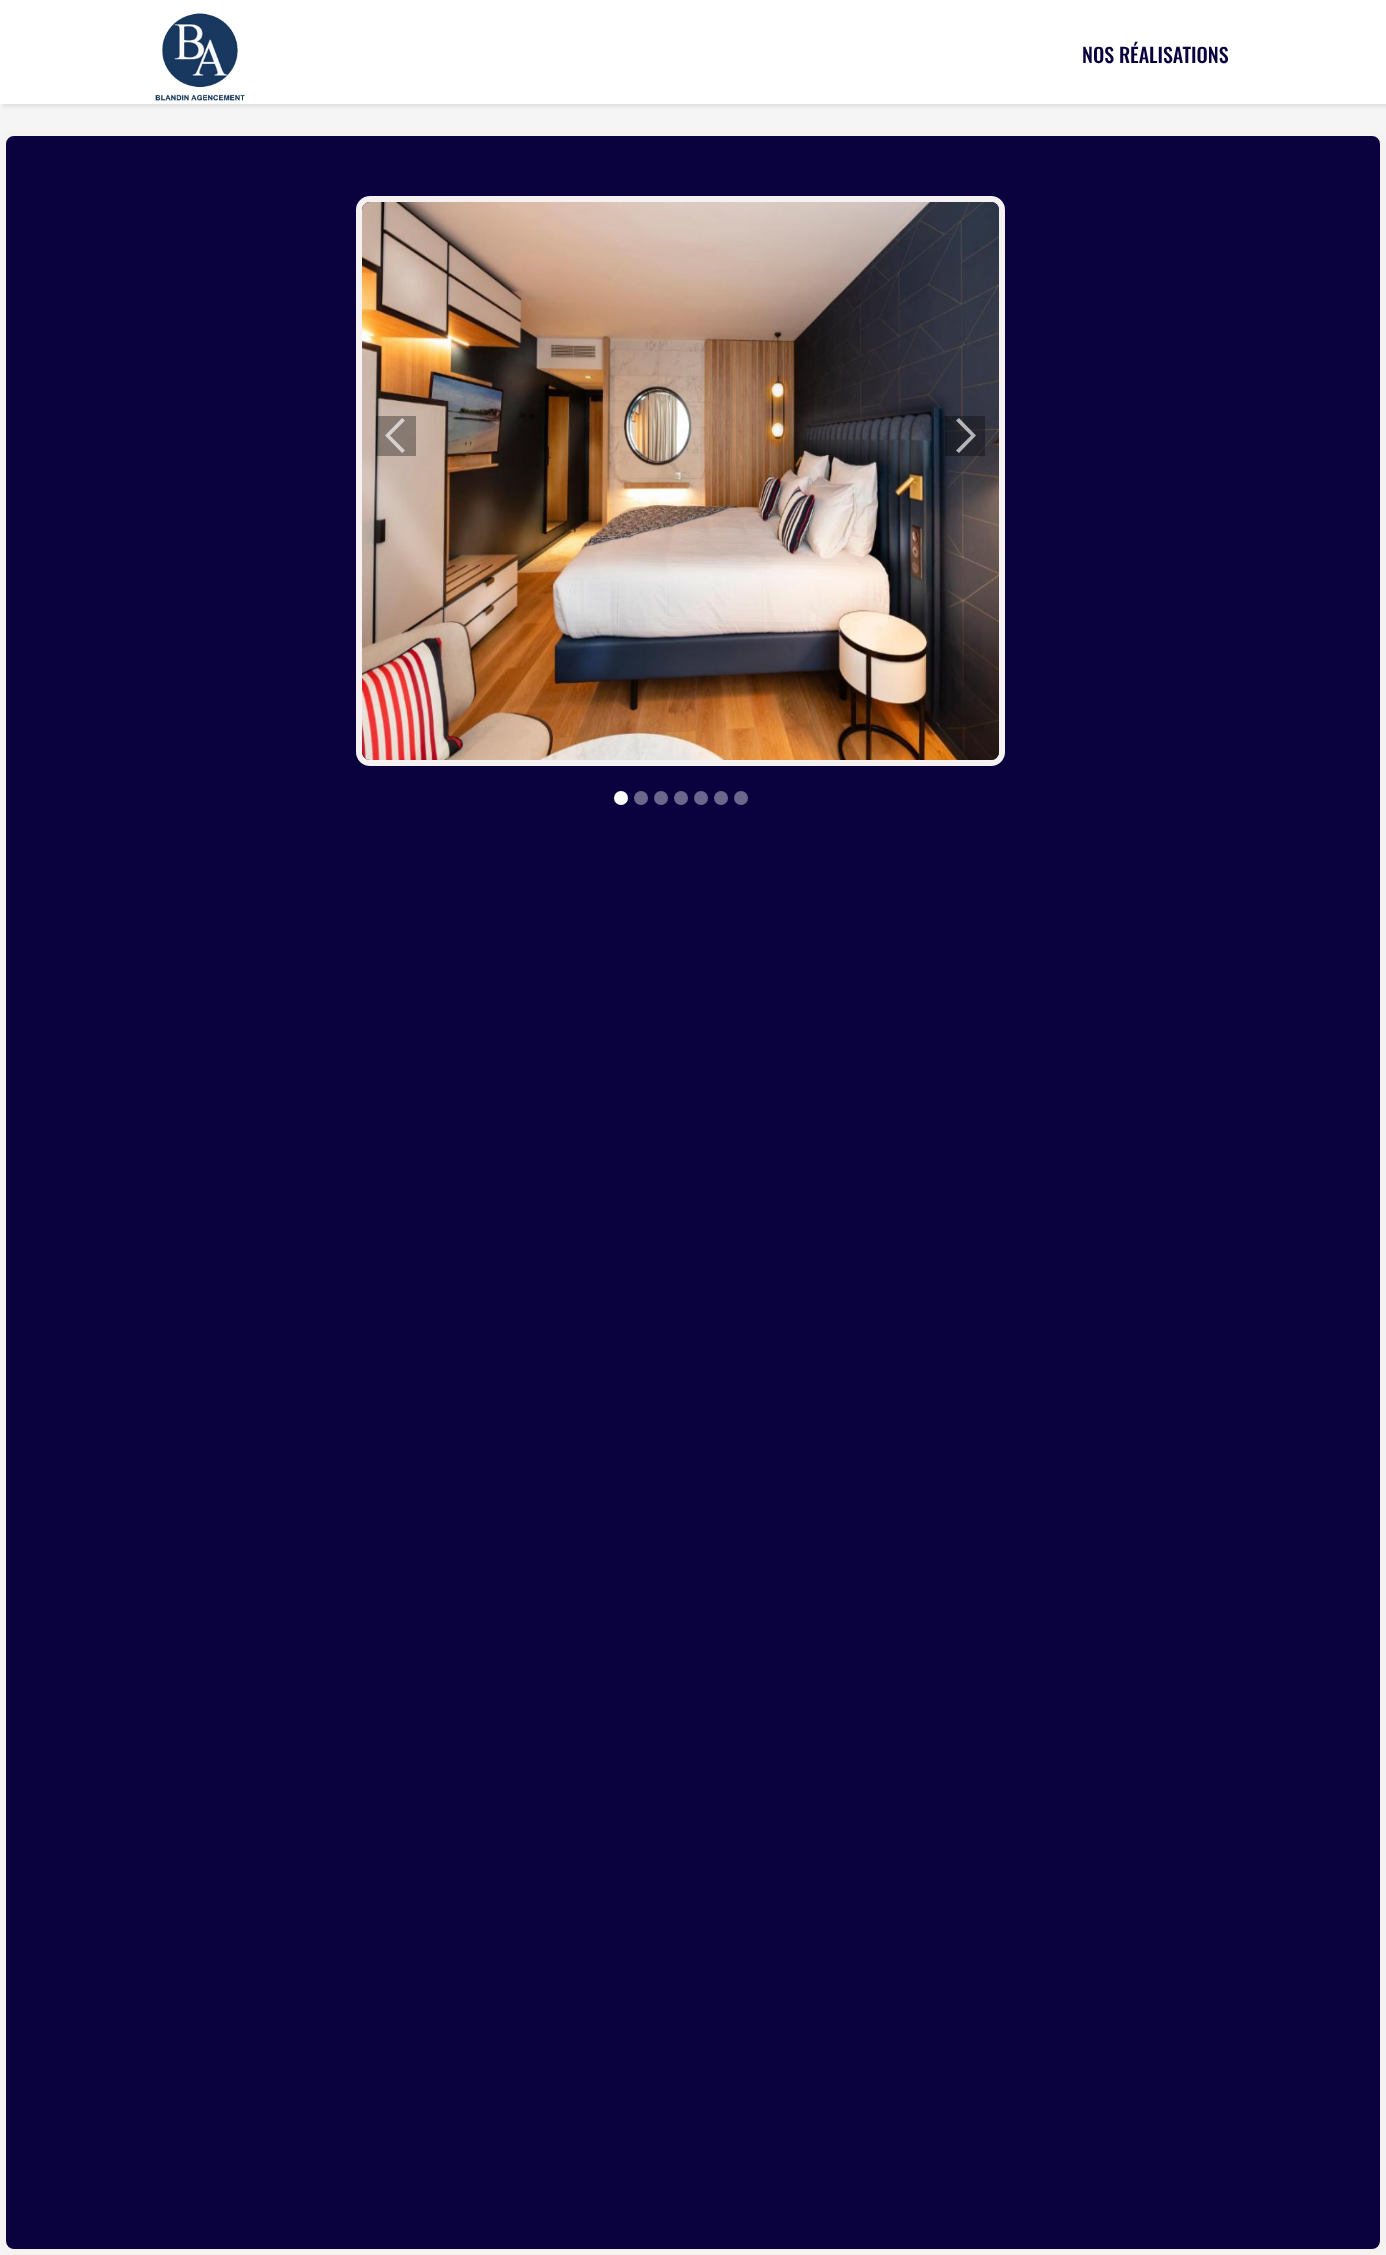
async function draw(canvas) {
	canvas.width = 1386;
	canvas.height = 2255;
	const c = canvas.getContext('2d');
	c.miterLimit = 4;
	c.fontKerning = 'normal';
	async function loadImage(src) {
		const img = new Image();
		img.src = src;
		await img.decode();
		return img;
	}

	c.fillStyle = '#f5f5f5';
	c.fillRect(0, 0, 1386, 2255);
	c.fillStyle = '#00000014';
	c.filter = 'blur(1.5px)';
	c.beginPath();
	c.rect(3, 3, 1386, 104);
	c.fill();
	c.filter = 'none';
	c.fillStyle = '#fff';
	c.fillRect(0, 0, 1386, 104);
	c.drawImage(await loadImage('img1.png'), 155, 13, 90, 88);
	c.font = '500 20px Oswald';
	c.fillStyle = '#09023f';
	c.fillText('NOS RÉALISATIONS', 1082, 63);
	c.beginPath();
	c.roundRect(3, 133, 1380, 2119, 11);
	c.fill();
	c.strokeStyle = '#f6f2f2';
	c.lineWidth = 6;
	c.stroke();
	c.beginPath();
	c.roundRect(359, 199, 643, 564, 11);
	c.stroke();
	c.drawImage(await loadImage('img2.png'), 362, 202, 637, 558);
	c.fillStyle = '#00000054';
	c.fillRect(376, 416, 40, 40);
	c.fillStyle = '#ffffffa8';
	c.beginPath();
	c.moveTo(385, 435.5);
	c.lineTo(402, 418);
	c.lineTo(405, 420.5);
	c.lineTo(390, 435.5);
	c.lineTo(405, 450.5);
	c.lineTo(402, 453);
	c.closePath();
	c.fill();
	c.fillStyle = '#00000054';
	c.fillRect(945, 416, 40, 40);
	c.fillStyle = '#ffffffa8';
	c.beginPath();
	c.moveTo(976, 435.5);
	c.lineTo(959, 418);
	c.lineTo(956, 420.5);
	c.lineTo(971, 435.5);
	c.lineTo(956, 450.5);
	c.lineTo(959, 453);
	c.closePath();
	c.fill();
	c.fillStyle = '#fff';
	c.beginPath();
	c.arc(621, 798, 7, 0, 2 * Math.PI);
	c.fill();
	c.fillStyle = '#6b678c';
	c.beginPath();
	c.arc(641, 798, 7, 0, 2 * Math.PI);
	c.fill();
	c.beginPath();
	c.arc(661, 798, 7, 0, 2 * Math.PI);
	c.fill();
	c.beginPath();
	c.arc(681, 798, 7, 0, 2 * Math.PI);
	c.fill();
	c.beginPath();
	c.arc(701, 798, 7, 0, 2 * Math.PI);
	c.fill();
	c.beginPath();
	c.arc(721, 798, 7, 0, 2 * Math.PI);
	c.fill();
	c.beginPath();
	c.arc(741, 798, 7, 0, 2 * Math.PI);
	c.fill();
}

draw(document.querySelector('canvas'));
